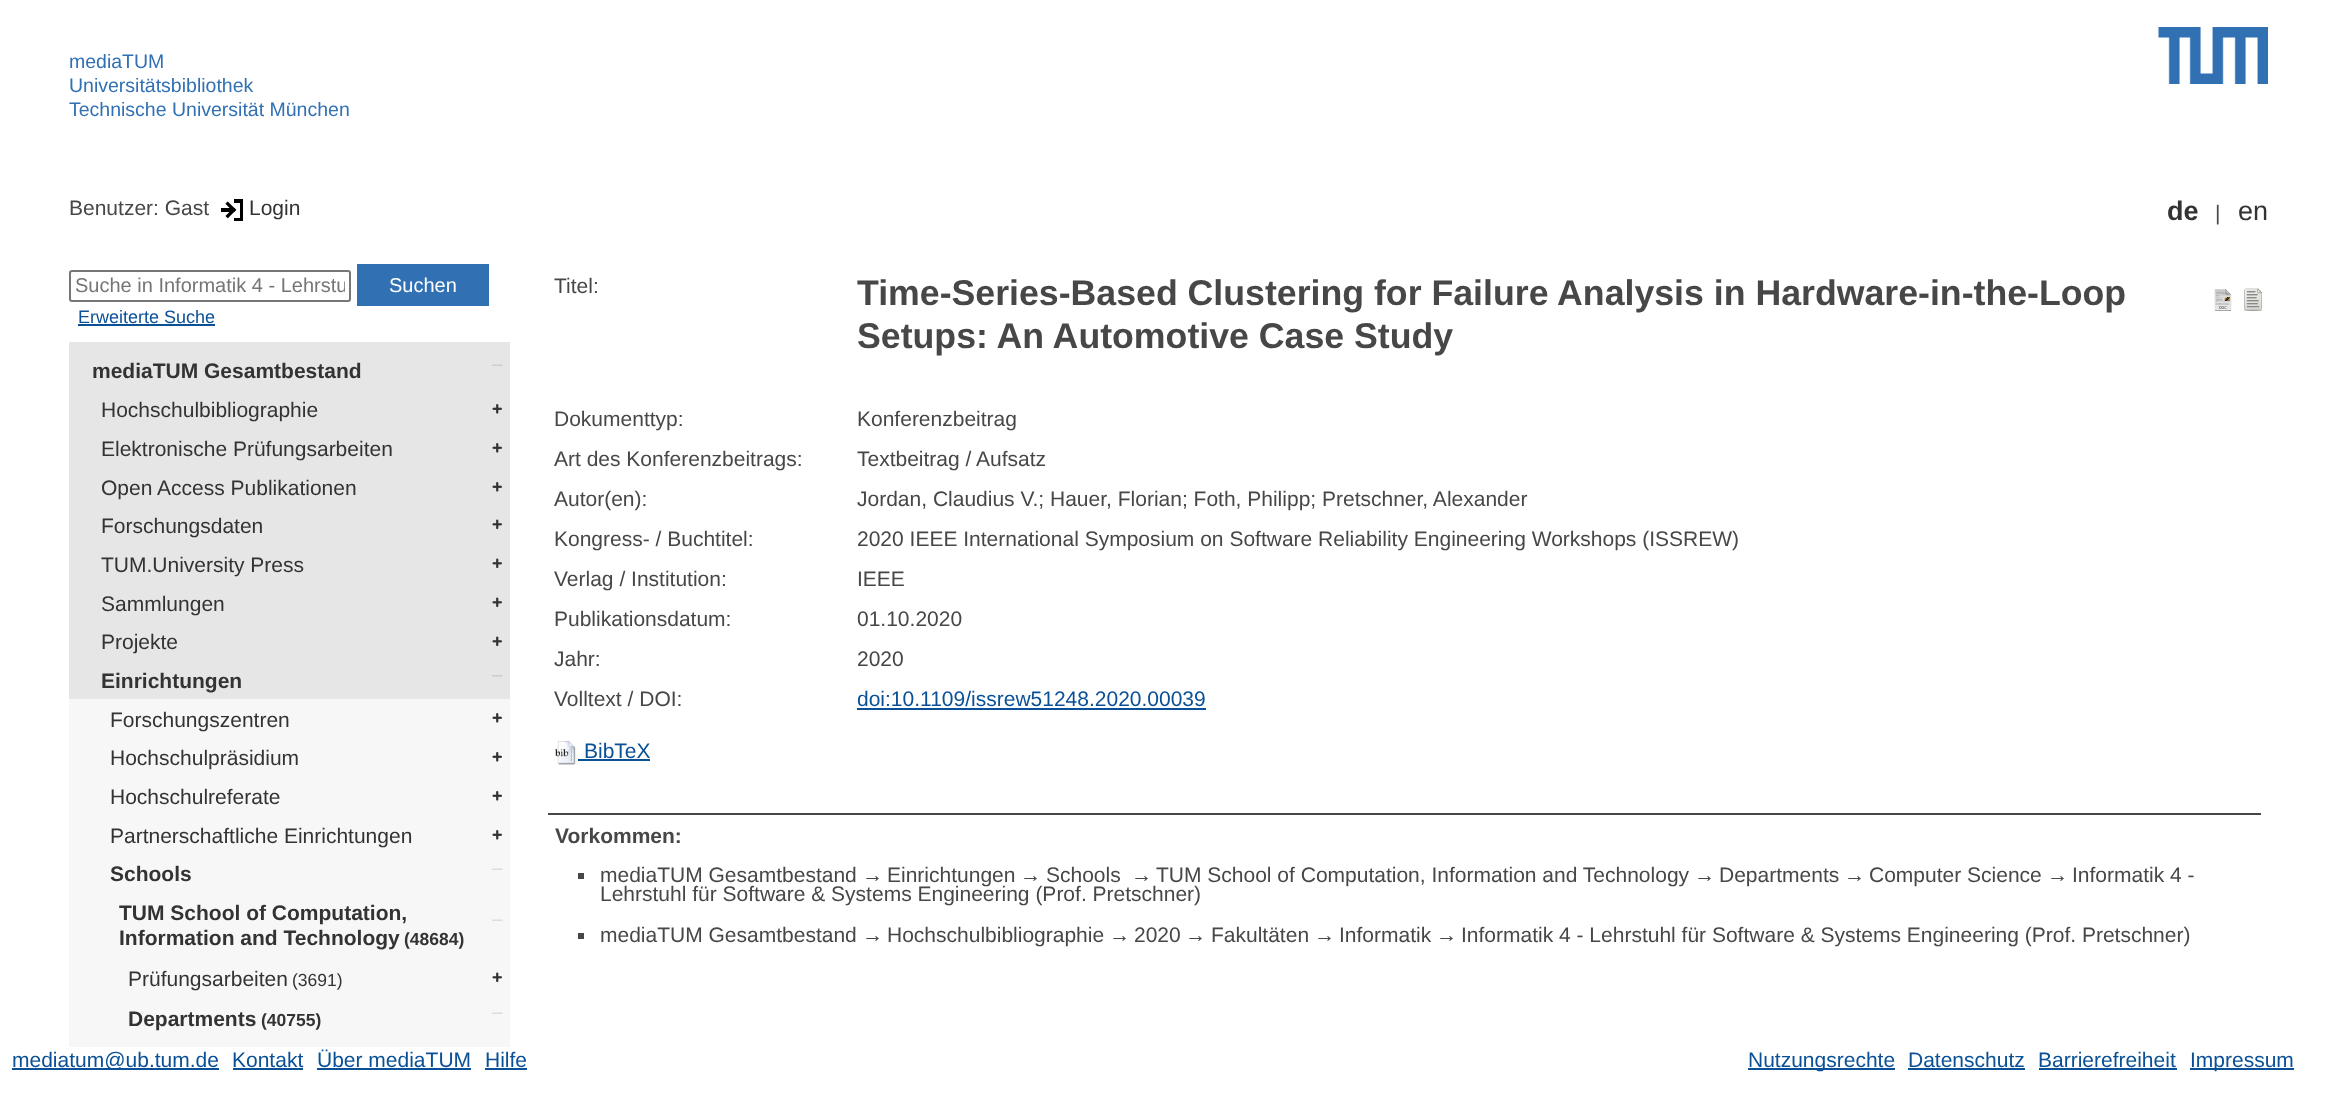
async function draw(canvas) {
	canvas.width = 2336;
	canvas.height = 1097;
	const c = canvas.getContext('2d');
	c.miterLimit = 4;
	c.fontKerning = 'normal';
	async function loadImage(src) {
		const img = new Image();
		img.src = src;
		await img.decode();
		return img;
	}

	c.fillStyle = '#fff';
	c.fillRect(0, 0, 2336, 1097);
	c.font = '19.5px Liberation Sans';
	c.fillStyle = '#3070b3';
	for (const [text, x, y] of [
		['mediaTUM', 69, 68],
		['Universitätsbibliothek', 69, 92],
		['Technische Universität München', 69, 116],
	]) {
		c.fillText(text, x, y);
	}
	c.drawImage(await loadImage('img1.png'), 2158, 27, 110, 57);
	c.font = '21px Liberation Sans';
	c.fillStyle = '#474747';
	c.fillText('Benutzer: Gast', 69, 215);
	c.drawImage(await loadImage('img2.png'), 221, 199, 22, 22);
	c.fillStyle = '#333';
	c.fillText('Login', 249, 215);
	c.font = 'bold 27px Liberation Sans';
	c.fillText('de', 2167, 220);
	c.font = '21px Liberation Sans';
	c.fillStyle = '#474747';
	c.fillText('|', 2215, 220);
	c.font = '27px Liberation Sans';
	c.fillStyle = '#333';
	c.fillText('en', 2238, 220);
	c.beginPath();
	c.roundRect(70, 271, 280, 30, 2);
	c.strokeStyle = '#767676';
	c.lineWidth = 2;
	c.stroke();
	c.save();
	c.beginPath();
	c.rect(75, 275, 270, 22);
	c.clip();
	c.font = '20px Liberation Sans';
	c.fillStyle = '#757575';
	c.fillText('Suche in Informatik 4 - Lehrstu', 75, 292);
	c.restore();
	c.fillStyle = '#3070b3';
	c.fillRect(357, 264, 132, 42);
	c.font = '20px Liberation Sans';
	c.fillStyle = '#fff';
	c.fillText('Suchen', 389, 292);
	c.font = '18px Liberation Sans';
	c.fillStyle = '#0a5096';
	c.fillText('Erweiterte Suche', 78, 323);
	c.fillRect(78, 324, 137, 2);
	c.fillStyle = '#e6e6e6';
	c.fillRect(69, 342, 441, 357);
	c.font = 'bold 21px Liberation Sans';
	c.fillStyle = '#333';
	c.fillText('mediaTUM Gesamtbestand', 92, 378);
	c.drawImage(await loadImage('img3.png'), 492, 364, 11, 2);
	c.font = '21px Liberation Sans';
	c.fillText('Hochschulbibliographie', 101, 417);
	c.drawImage(await loadImage('img4.png'), 492, 404, 10, 10);
	c.fillText('Elektronische Prüfungsarbeiten', 101, 456);
	c.drawImage(await loadImage('img4.png'), 492, 443, 10, 10);
	c.fillText('Open Access Publikationen', 101, 495);
	c.drawImage(await loadImage('img4.png'), 492, 482, 10, 10);
	c.fillText('Forschungsdaten', 101, 533);
	c.drawImage(await loadImage('img5.png'), 492, 519, 10, 11);
	c.fillText('TUM.University Press', 101, 572);
	c.drawImage(await loadImage('img5.png'), 492, 558, 10, 11);
	c.fillText('Sammlungen', 101, 611);
	c.drawImage(await loadImage('img5.png'), 492, 597, 10, 11);
	c.fillText('Projekte', 101, 649);
	c.drawImage(await loadImage('img5.png'), 492, 636, 10, 11);
	c.font = 'bold 21px Liberation Sans';
	c.fillText('Einrichtungen', 101, 688);
	c.drawImage(await loadImage('img6.png'), 492, 675, 11, 2);
	c.fillStyle = '#f7f7f7';
	c.fillRect(69, 699, 441, 348);
	c.font = '21px Liberation Sans';
	c.fillStyle = '#333';
	c.fillText('Forschungszentren', 110, 727);
	c.drawImage(await loadImage('img7.png'), 492, 713, 10, 10);
	c.fillText('Hochschulpräsidium', 110, 765);
	c.drawImage(await loadImage('img7.png'), 492, 752, 10, 10);
	c.fillText('Hochschulreferate', 110, 804);
	c.drawImage(await loadImage('img7.png'), 492, 791, 10, 10);
	c.fillText('Partnerschaftliche Einrichtungen', 110, 843);
	c.drawImage(await loadImage('img7.png'), 492, 830, 10, 10);
	c.font = 'bold 21px Liberation Sans';
	c.fillText('Schools', 110, 881);
	c.drawImage(await loadImage('img8.png'), 492, 868, 11, 2);
	c.fillText('TUM School of Computation,', 119, 920);
	c.drawImage(await loadImage('img8.png'), 492, 919, 11, 2);
	c.fillText('Information and Technology', 119, 945);
	c.font = 'bold 17.5px Liberation Sans';
	c.fillText('(48684)', 404, 945);
	c.font = '21px Liberation Sans';
	c.fillText('Prüfungsarbeiten', 128, 986);
	c.font = '17.5px Liberation Sans';
	c.fillText('(3691)', 292, 986);
	c.drawImage(await loadImage('img9.png'), 492, 972, 10, 11);
	c.font = 'bold 21px Liberation Sans';
	c.fillText('Departments', 128, 1026);
	c.font = 'bold 17.5px Liberation Sans';
	c.fillText('(40755)', 261, 1026);
	c.drawImage(await loadImage('img8.png'), 492, 1012, 11, 2);
	c.font = '21px Liberation Sans';
	c.fillStyle = '#474747';
	c.fillText('Titel:', 554, 293);
	c.font = 'bold 35.7px Liberation Sans';
	c.fillText('Time-Series-Based Clustering for Failure Analysis in Hardware-in-the-Loop', 857, 305);
	c.fillText('Setups: An Automotive Case Study', 857, 348);
	c.font = '21px Liberation Sans';
	for (const [text, x, y] of [
		['Dokumenttyp:', 554, 426],
		['Konferenzbeitrag', 857, 426],
		['Art des Konferenzbeitrags:', 554, 466],
		['Textbeitrag / Aufsatz', 857, 466],
		['Autor(en):', 554, 506],
		['Jordan, Claudius V.; Hauer, Florian; Foth, Philipp; Pretschner, Alexander', 857, 506],
		['Kongress- / Buchtitel:', 554, 546],
		['2020 IEEE International Symposium on Software Reliability Engineering Workshops (ISSREW)', 857, 546],
		['Verlag / Institution:', 554, 586],
		['IEEE', 857, 586],
		['Publikationsdatum:', 554, 626],
		['01.10.2020', 857, 626],
		['Jahr:', 554, 666],
		['2020', 857, 666],
		['Volltext / DOI:', 554, 706],
	]) {
		c.fillText(text, x, y);
	}
	c.fillStyle = '#0a5096';
	c.fillText('doi:10.1109/issrew51248.2020.00039', 857, 706);
	c.fillRect(857, 708, 349, 2);
	c.drawImage(await loadImage('img10.png'), 555, 741, 21, 24);
	c.fillText('BibTeX', 584, 758);
	c.fillRect(578, 759, 72, 2);
	c.drawImage(await loadImage('img11.png'), 2214, 289, 18, 22);
	c.drawImage(await loadImage('img12.png'), 2242, 288, 22, 23);
	c.fillStyle = '#474747';
	c.fillRect(548, 813, 1713, 2);
	c.font = 'bold 21px Liberation Sans';
	c.fillText('Vorkommen:', 555, 843);
	c.fillRect(578, 873, 6, 6);
	c.font = '21px Liberation Sans';
	for (const [text, x, y] of [
		['mediaTUM Gesamtbestand', 600, 882],
		['→', 862, 882],
		['Einrichtungen', 887, 882],
		['→', 1020, 882],
		['Schools', 1046, 882],
		['→', 1131, 882],
		['TUM School of Computation, Information and Technology', 1156, 882],
		['→', 1694, 882],
		['Departments', 1719, 882],
		['→', 1844, 882],
		['Computer Science', 1869, 882],
		['→', 2047, 882],
		['Informatik 4 -', 2072, 882],
		['Lehrstuhl für Software & Systems Engineering (Prof. Pretschner)', 600, 901],
	]) {
		c.fillText(text, x, y);
	}
	c.fillRect(578, 933, 6, 6);
	for (const [text, x, y] of [
		['mediaTUM Gesamtbestand', 600, 942],
		['→', 862, 942],
		['Hochschulbibliographie', 887, 942],
		['→', 1109, 942],
		['2020', 1134, 942],
		['→', 1185, 942],
		['Fakultäten', 1211, 942],
		['→', 1314, 942],
		['Informatik', 1339, 942],
		['→', 1436, 942],
		['Informatik 4 - Lehrstuhl für Software & Systems Engineering (Prof. Pretschner)', 1461, 942],
	]) {
		c.fillText(text, x, y);
	}
	c.fillStyle = '#0a5096';
	c.fillRect(12, 1068, 207, 2);
	c.fillText('mediatum@ub.tum.de', 12, 1067);
	c.fillText('Kontakt', 232, 1067);
	c.fillRect(233, 1068, 70, 2);
	c.fillText('Über mediaTUM', 317, 1067);
	c.fillRect(317, 1068, 154, 2);
	c.fillText('Hilfe', 485, 1067);
	c.fillRect(485, 1068, 42, 2);
	c.fillRect(1748, 1068, 147, 2);
	c.fillText('Nutzungsrechte', 1748, 1067);
	c.fillText('Datenschutz', 1908, 1067);
	c.fillRect(1908, 1068, 117, 2);
	c.fillText('Barrierefreiheit', 2038, 1067);
	c.fillRect(2039, 1068, 138, 2);
	c.fillRect(2190, 1068, 104, 2);
	c.fillText('Impressum', 2190, 1067);
}

draw(document.querySelector('canvas'));
